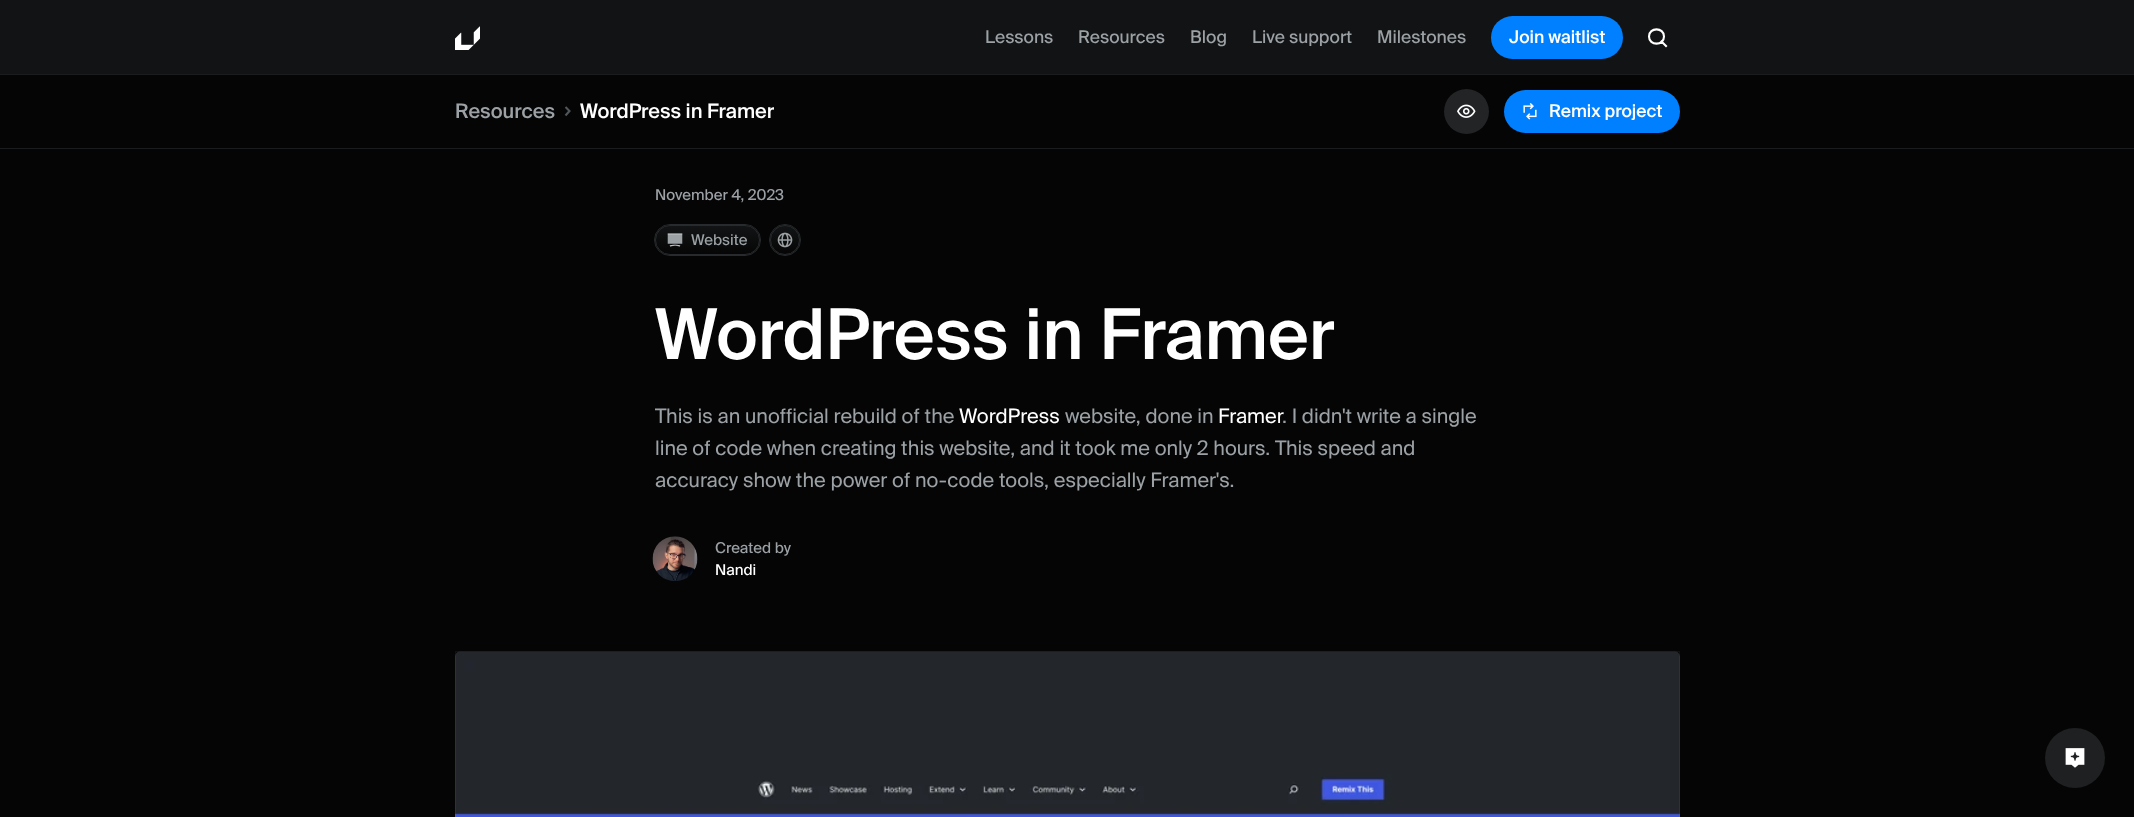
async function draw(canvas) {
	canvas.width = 2134;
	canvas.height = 817;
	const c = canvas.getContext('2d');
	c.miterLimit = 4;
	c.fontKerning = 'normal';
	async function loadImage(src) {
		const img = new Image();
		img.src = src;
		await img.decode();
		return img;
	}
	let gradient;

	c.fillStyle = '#050505';
	c.fillRect(0, 0, 2134, 817);
	c.fillStyle = '#121314';
	c.fillRect(0, 0, 2134, 74);
	c.drawImage(await loadImage('img1.png'), 455, 26, 25, 24);
	c.font = '17.5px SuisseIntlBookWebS';
	c.fillStyle = '#9ba1a5';
	for (const [text, x, y] of [
		['Lessons', 985, 43],
		['Resources', 1078, 43],
		['Blog', 1190, 43],
		['Live support', 1252, 43],
		['Milestones', 1377, 43],
	]) {
		c.fillText(text, x, y);
	}
	c.fillStyle = '#0080ff';
	c.beginPath();
	c.roundRect(1491, 16, 132, 43, 21.5);
	c.fill();
	c.font = '500 17.5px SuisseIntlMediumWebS';
	c.fillStyle = '#fff';
	c.fillText('Join waitlist', 1509, 43);
	c.beginPath();
	c.moveTo(1666, 46);
	c.lineTo(1661.5, 41.5);
	c.moveTo(1664, 36.5);
	c.bezierCurveTo(1664, 46, 1649, 46, 1649, 36.5);
	c.bezierCurveTo(1649, 27, 1664, 27, 1664, 36.5);
	c.closePath();
	c.strokeStyle = '#fff';
	c.lineWidth = 2.1;
	c.lineCap = 'square';
	c.stroke();
	c.fillStyle = '#1a1c1d';
	c.fillRect(0, 74, 2134, 1);
	c.font = '500 20px SuisseIntlMediumWebS';
	c.fillStyle = '#9ba1a5';
	c.fillText('Resources', 455, 118);
	c.beginPath();
	c.moveTo(565.5, 115.5);
	c.lineTo(569.5, 111);
	c.lineTo(565.5, 107);
	c.strokeStyle = '#51565a';
	c.lineCap = 'butt';
	c.stroke();
	c.fillStyle = '#fff';
	c.fillText('WordPress in Framer', 580, 118);
	c.fillStyle = '#222426';
	c.beginPath();
	c.arc(1466.5, 111.5, 22.5, 0, 2 * Math.PI);
	c.fill();
	c.drawImage(await loadImage('img2.png'), 1457, 104, 19, 14);
	c.fillStyle = '#0080ff';
	c.beginPath();
	c.roundRect(1504, 90, 176, 43, 21.5);
	c.fill();
	c.drawImage(await loadImage('img3.png'), 1523, 103, 14, 17);
	c.font = '500 17.5px SuisseIntlMediumWebS';
	c.fillStyle = '#fff';
	c.fillText('Remix project', 1549, 117);
	c.fillStyle = '#1a1c1d';
	c.fillRect(0, 148, 2134, 1);
	c.font = '15px SuisseIntlBookWebS';
	c.fillStyle = '#9ba1a5';
	c.fillText('November 4, 2023', 655, 200);
	c.beginPath();
	c.roundRect(654.5, 224.5, 106, 31, 15.5);
	c.strokeStyle = '#272b2d';
	c.lineWidth = 1;
	c.stroke();
	gradient = c.createLinearGradient(708, 225, 708, 255);
	gradient.addColorStop(0, '#131415');
	gradient.addColorStop(1, '#13141500');
	c.fillStyle = gradient;
	c.beginPath();
	c.roundRect(655, 225, 105, 30, 15);
	c.fill();
	c.drawImage(await loadImage('img4.png'), 667, 233, 16, 14);
	c.beginPath();
	c.roundRect(655.5, 225.5, 104, 29, 14.5);
	c.stroke();
	c.fillStyle = '#9ba1a5';
	c.fillText('Website', 691, 245);
	c.beginPath();
	c.arc(785, 240, 15.5, 0, 2 * Math.PI);
	c.stroke();
	gradient = c.createLinearGradient(785, 225, 785, 255);
	gradient.addColorStop(0, '#131415');
	gradient.addColorStop(1, '#13141500');
	c.fillStyle = gradient;
	c.beginPath();
	c.arc(785, 240, 15, 0, 2 * Math.PI);
	c.fill();
	c.drawImage(await loadImage('img5.png'), 777, 232, 16, 16);
	c.beginPath();
	c.arc(785, 240, 14.5, 0, 2 * Math.PI);
	c.stroke();
	c.font = '500 70px SuisseIntlMediumWebS';
	c.fillStyle = '#fff';
	c.fillText('WordPress in Framer', 655, 359);
	c.font = '20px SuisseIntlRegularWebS';
	c.fillStyle = '#9ba1a5';
	c.fillText('This is an unofficial rebuild of the', 655, 423);
	c.fillStyle = '#fff';
	c.fillText('WordPress', 959, 423);
	c.fillStyle = '#9ba1a5';
	c.fillText('website, done in', 1065, 423);
	c.fillStyle = '#fff';
	c.fillText('Framer', 1218, 423);
	c.fillStyle = '#9ba1a5';
	for (const [text, x, y] of [
		['. I didn\'t write a single', 1282, 423],
		['line of code when creating this website, and it took me only 2 hours. This speed and', 655, 455],
		['accuracy show the power of no-code tools, especially Framer\'s.', 655, 487],
	]) {
		c.fillText(text, x, y);
	}
	c.drawImage(await loadImage('img6.png'), 652, 536, 46, 45);
	c.font = '15px SuisseIntlBookWebS';
	c.fillText('Created by', 715, 553);
	c.fillStyle = '#fff';
	c.fillText('Nandi', 715, 575);
	c.drawImage(await loadImage('img7.png'), 455, 651, 1225, 166);
	c.strokeStyle = '#ffffff0d';
	c.strokeRect(455.5, 651.5, 1224, 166);
	c.fillStyle = '#1e2021';
	c.beginPath();
	c.arc(2075, 758, 30, 0, 2 * Math.PI);
	c.fill();
	c.drawImage(await loadImage('img8.png'), 2065, 748, 20, 20);
}

draw(document.querySelector('canvas'));
